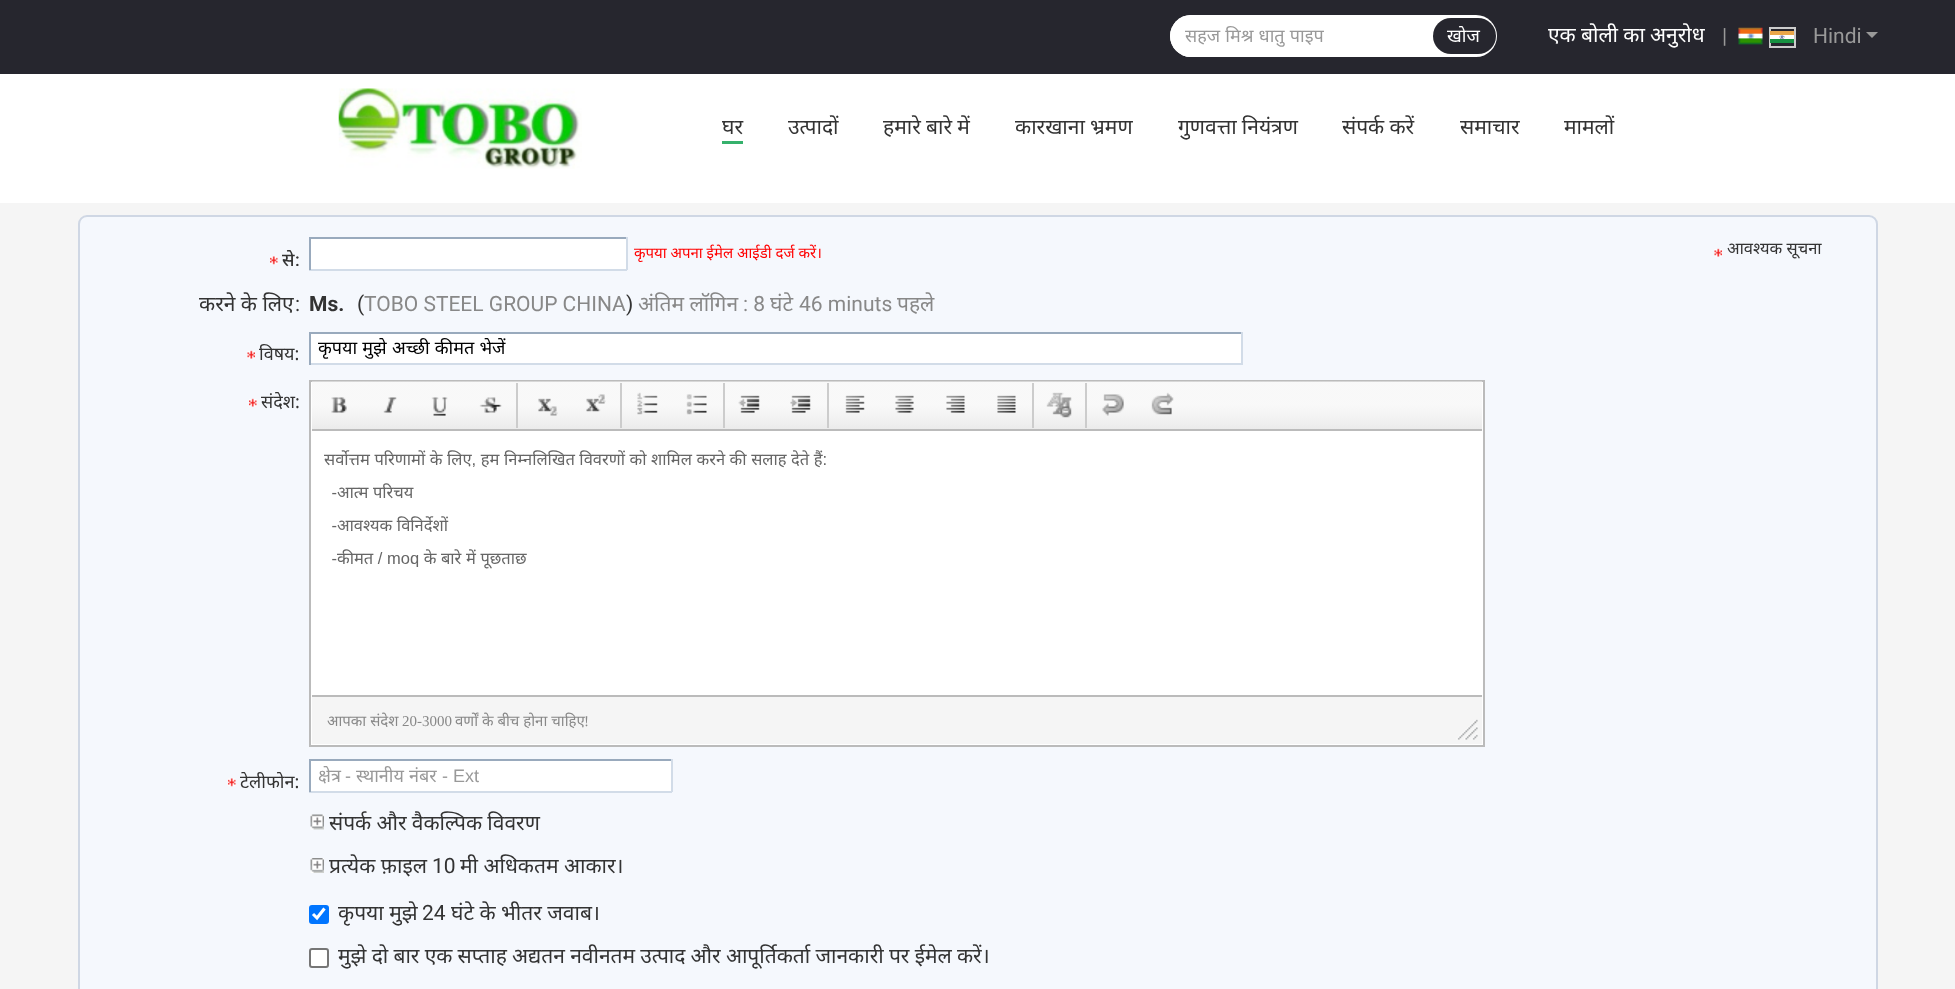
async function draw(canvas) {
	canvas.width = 1955;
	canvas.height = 989;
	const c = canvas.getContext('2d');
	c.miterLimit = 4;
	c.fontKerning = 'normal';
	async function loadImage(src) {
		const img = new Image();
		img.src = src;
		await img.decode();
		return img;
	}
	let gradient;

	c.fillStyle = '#f5f5f5';
	c.fillRect(0, 0, 1955, 989);
	c.fillStyle = '#fff';
	c.fillRect(0, 74, 1955, 129);
	c.fillStyle = '#26262e';
	c.fillRect(0, 0, 1955, 74);
	c.fillStyle = '#fff';
	c.beginPath();
	c.roundRect(1170, 15, 327, 42, 21);
	c.fill();
	c.beginPath();
	c.roundRect(1170, 15, 263, 42, [21, 0, 0, 21]);
	c.fill();
	c.wordSpacing = '0.5px';
	c.font = '18px Noto Sans';
	c.fillStyle = '#999';
	c.fillText('सहज मिश्र धातु पाइप', 1185, 42);
	c.fillStyle = '#26262e';
	c.beginPath();
	c.roundRect(1433, 18, 63, 36, 18);
	c.fill();
	c.wordSpacing = '0px';
	c.fillStyle = '#fff';
	c.fillText('खोज', 1447, 42);
	c.wordSpacing = '-0.25px';
	c.font = '21px Noto Sans';
	c.fillText('एक बोली का अनुरोध', 1548, 42);
	c.wordSpacing = '0px';
	c.font = '21px Roboto';
	c.fillStyle = '#999';
	c.fillText('|', 1722, 43);
	c.drawImage(await loadImage('img1.png'), 1738, 27, 25, 18);
	c.strokeStyle = '#ccc';
	c.lineWidth = 2;
	c.strokeRect(1770, 28, 25, 19);
	c.fillText('Hindi', 1813, 43);
	c.drawImage(await loadImage('img2.png'), 1770, 31, 24, 12);
	c.beginPath();
	c.moveTo(1866, 32);
	c.lineTo(1878, 32);
	c.lineTo(1872, 38);
	c.closePath();
	c.fill();
	c.drawImage(await loadImage('img3.png'), 338, 88, 244, 81);
	c.font = '21px Noto Sans';
	c.fillStyle = '#333';
	c.fillText('घर', 722, 134);
	c.fillStyle = '#35b16c';
	c.fillRect(722, 141, 21, 3);
	c.fillStyle = '#333';
	c.fillText('उत्पादों', 788, 134);
	c.wordSpacing = '-0.25px';
	for (const [text, x, y] of [
		['हमारे बारे में', 883, 134],
		['कारखाना भ्रमण', 1015, 134],
		['गुणवत्ता नियंत्रण', 1178, 134],
		['संपर्क करें', 1342, 134],
	]) {
		c.fillText(text, x, y);
	}
	c.wordSpacing = '0px';
	c.fillText('समाचार', 1460, 134);
	c.fillText('मामलों', 1564, 134);
	c.fillStyle = '#f5f8fd';
	c.beginPath();
	c.roundRect(79, 216, 1798, 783, 8);
	c.fill();
	c.strokeStyle = '#cfd7e4';
	c.stroke();
	c.drawImage(await loadImage('img4.png'), 270, 256, 8, 9);
	c.font = '500 18px Noto Sans';
	c.fillStyle = '#333';
	c.fillText('से', 282, 266);
	c.font = '500 18px Roboto';
	c.fillText(':', 295, 266);
	for (const [x, y, w, h, color] of [
		[311, 239, 315, 30, '#fff'],
		[309, 237, 318, 2, '#99aabd'],
		[626, 237, 2, 33, '#d2dce8'],
		[309, 269, 318, 2, '#d2dce8'],
		[309, 237, 2, 33, '#99aabd'],
	]) {
		c.fillStyle = color;
		c.fillRect(x, y, w, h);
	}
	c.font = '15px Noto Sans';
	c.fillStyle = '#f00';
	c.fillText('कृपया अपना ईमेल आईडी दर्ज करें।', 634, 258);
	c.drawImage(await loadImage('img5.png'), 1714, 248, 8, 9);
	c.font = '16.5px Noto Sans';
	c.fillStyle = '#333';
	c.fillText('आवश्यक सूचना', 1727, 254);
	c.font = '21px Noto Sans';
	c.fillText('करने के लिए', 199, 311);
	c.font = '21px Roboto';
	c.fillText(':', 295, 311);
	c.font = 'bold 21px Roboto';
	c.fillText('Ms.', 309, 311);
	c.font = '21px Roboto';
	c.fillText('(', 357, 311);
	c.fillStyle = '#888';
	c.fillText('TOBO STEEL GROUP CHINA', 364, 311);
	c.fillStyle = '#333';
	c.fillText(')', 626, 311);
	c.font = '21px Noto Sans';
	c.fillStyle = '#888';
	c.fillText('अंतिम लॉगिन', 638, 311);
	c.font = '21px Roboto';
	c.fillText(': 8', 743, 311);
	c.font = '21px Noto Sans';
	c.fillText('घंटे', 770, 311);
	c.font = '21px Roboto';
	c.fillText('46 minuts', 799, 311);
	c.font = '21px Noto Sans';
	c.fillText('पहले', 897, 311);
	c.drawImage(await loadImage('img5.png'), 247, 350, 8, 9);
	c.font = '18px Noto Sans';
	c.fillStyle = '#333';
	c.fillText('विषय:', 259, 360);
	for (const [x, y, w, h, color] of [
		[311, 334, 930, 29, '#fff'],
		[309, 332, 933, 2, '#99aabd'],
		[1241, 332, 2, 33, '#d2dce8'],
		[309, 363, 933, 2, '#d2dce8'],
		[309, 332, 2, 33, '#99aabd'],
	]) {
		c.fillStyle = color;
		c.fillRect(x, y, w, h);
	}
	c.save();
	c.beginPath();
	c.rect(318, 333, 915, 30);
	c.clip();
	c.wordSpacing = '0.5px';
	c.fillStyle = '#000';
	c.fillText('कृपया मुझे अच्छी कीमत भेजें', 318, 354);
	c.restore();
	c.drawImage(await loadImage('img6.png'), 249, 398, 8, 9);
	c.fillStyle = '#333';
	c.fillText('संदेश:', 261, 408);
	c.fillStyle = '#fff';
	c.beginPath();
	c.rect(310, 381, 1174, 365);
	c.fill();
	c.strokeStyle = '#bbb';
	c.stroke();
	gradient = c.createLinearGradient(897, 381, 897, 429);
	gradient.addColorStop(0.5, '#f2f2f280');
	gradient.addColorStop(1, '#ebebeb');
	c.fillStyle = gradient;
	c.fillRect(312, 381, 1170, 48);
	c.fillStyle = '#bbb';
	c.fillRect(312, 429, 1170, 2);
	c.drawImage(await loadImage('img7.png'), 331, 397, 16, 16);
	c.drawImage(await loadImage('img8.png'), 383, 397, 14, 16);
	c.drawImage(await loadImage('img9.png'), 431, 397, 17, 19);
	c.drawImage(await loadImage('img10.png'), 479, 397, 23, 16);
	c.fillStyle = '#ccc';
	c.fillRect(516, 383, 2, 45);
	c.drawImage(await loadImage('img11.png'), 538, 398, 20, 18);
	c.drawImage(await loadImage('img12.png'), 586, 394, 20, 18);
	c.fillRect(620, 383, 2, 45);
	c.drawImage(await loadImage('img13.png'), 637, 392, 21, 23);
	c.drawImage(await loadImage('img14.png'), 686, 394, 21, 21);
	c.fillRect(723, 383, 2, 45);
	c.drawImage(await loadImage('img15.png'), 738, 395, 22, 18);
	c.drawImage(await loadImage('img16.png'), 790, 395, 21, 18);
	c.fillRect(827, 383, 2, 45);
	c.drawImage(await loadImage('img17.png'), 845, 395, 20, 18);
	c.drawImage(await loadImage('img18.png'), 895, 395, 19, 18);
	c.drawImage(await loadImage('img19.png'), 946, 395, 19, 18);
	c.drawImage(await loadImage('img20.png'), 997, 395, 19, 18);
	c.fillRect(1032, 383, 2, 45);
	c.drawImage(await loadImage('img21.png'), 1046, 392, 26, 26);
	c.fillRect(1085, 383, 2, 45);
	c.drawImage(await loadImage('img22.png'), 1102, 394, 22, 22);
	c.drawImage(await loadImage('img23.png'), 1151, 392, 23, 23);
	c.drawImage(await loadImage('img24.png'), 324, 450, 502, 119);
	c.fillStyle = '#f5f5f5';
	c.fillRect(312, 697, 1170, 47);
	c.fillStyle = '#bbb';
	c.fillRect(312, 695, 1170, 2);
	c.font = '15px Noto Sans';
	c.fillStyle = '#888';
	c.fillText('आपका संदेश', 327, 726);
	c.font = '15px Liberation Serif';
	c.fillText('20-3000', 402, 726);
	c.font = '15px Noto Sans';
	c.fillText('वर्णों के बीच होना चाहिए', 455, 726);
	c.font = '15px Liberation Serif';
	c.fillText('!', 584, 726);
	c.drawImage(await loadImage('img25.png'), 1456, 719, 22, 21);
	c.drawImage(await loadImage('img26.png'), 228, 778, 8, 9);
	c.font = '18px Noto Sans';
	c.fillStyle = '#333';
	c.fillText('टेलीफोन:', 240, 788);
	for (const [x, y, w, h, color] of [
		[311, 761, 360, 30, '#fff'],
		[309, 759, 363, 2, '#99aabd'],
		[671, 759, 2, 33, '#d2dce8'],
		[309, 791, 363, 2, '#d2dce8'],
		[309, 759, 2, 33, '#99aabd'],
	]) {
		c.fillStyle = color;
		c.fillRect(x, y, w, h);
	}
	c.save();
	c.beginPath();
	c.rect(318, 762, 345, 26);
	c.clip();
	c.fillStyle = '#999';
	c.fillText('क्षेत्र', 318, 782);
	c.restore();
	c.font = '18px Liberation Sans';
	c.fillStyle = '#999';
	c.fillText('-', 345, 782);
	c.font = '18px Noto Sans';
	c.fillText('स्थानीय', 356, 782);
	c.fillText('नंबर', 409, 782);
	c.font = '18px Liberation Sans';
	c.fillText('- Ext', 442, 782);
	c.drawImage(await loadImage('img27.png'), 310, 814, 14, 16);
	c.wordSpacing = '-0.25px';
	c.font = '21px Noto Sans';
	c.fillStyle = '#333';
	c.fillText('संपर्क और वैकल्पिक विवरण', 329, 830);
	c.drawImage(await loadImage('img28.png'), 310, 858, 14, 15);
	c.wordSpacing = '0px';
	c.fillText('प्रत्येक फ़ाइल', 329, 873);
	c.font = '21px Roboto';
	c.fillText('10', 432, 873);
	c.font = '21px Noto Sans';
	c.fillText('मी अधिकतम आकार।', 460, 873);
	c.fillStyle = '#0075ff';
	c.beginPath();
	c.roundRect(309, 905, 20, 19, 3);
	c.fill();
	c.beginPath();
	c.moveTo(313, 914);
	c.lineTo(317, 918);
	c.lineTo(324.5, 908.5);
	c.strokeStyle = '#fff';
	c.lineWidth = 3.1;
	c.stroke();
	c.fillStyle = '#333';
	c.fillText('कृपया मुझे', 338, 920);
	c.font = '21px Roboto';
	c.fillText('24', 422, 920);
	c.font = '21px Noto Sans';
	c.fillText('घंटे के भीतर जवाब।', 451, 920);
	c.fillStyle = '#fff';
	c.beginPath();
	c.roundRect(310, 949, 18, 18, 2);
	c.fill();
	c.strokeStyle = '#767676';
	c.lineWidth = 2;
	c.stroke();
	c.wordSpacing = '-0.25px';
	c.fillStyle = '#333';
	c.fillText('मुझे दो बार एक सप्ताह अद्यतन नवीनतम उत्पाद और आपूर्तिकर्ता जानकारी पर ईमेल करें।', 338, 963);
}

draw(document.querySelector('canvas'));
